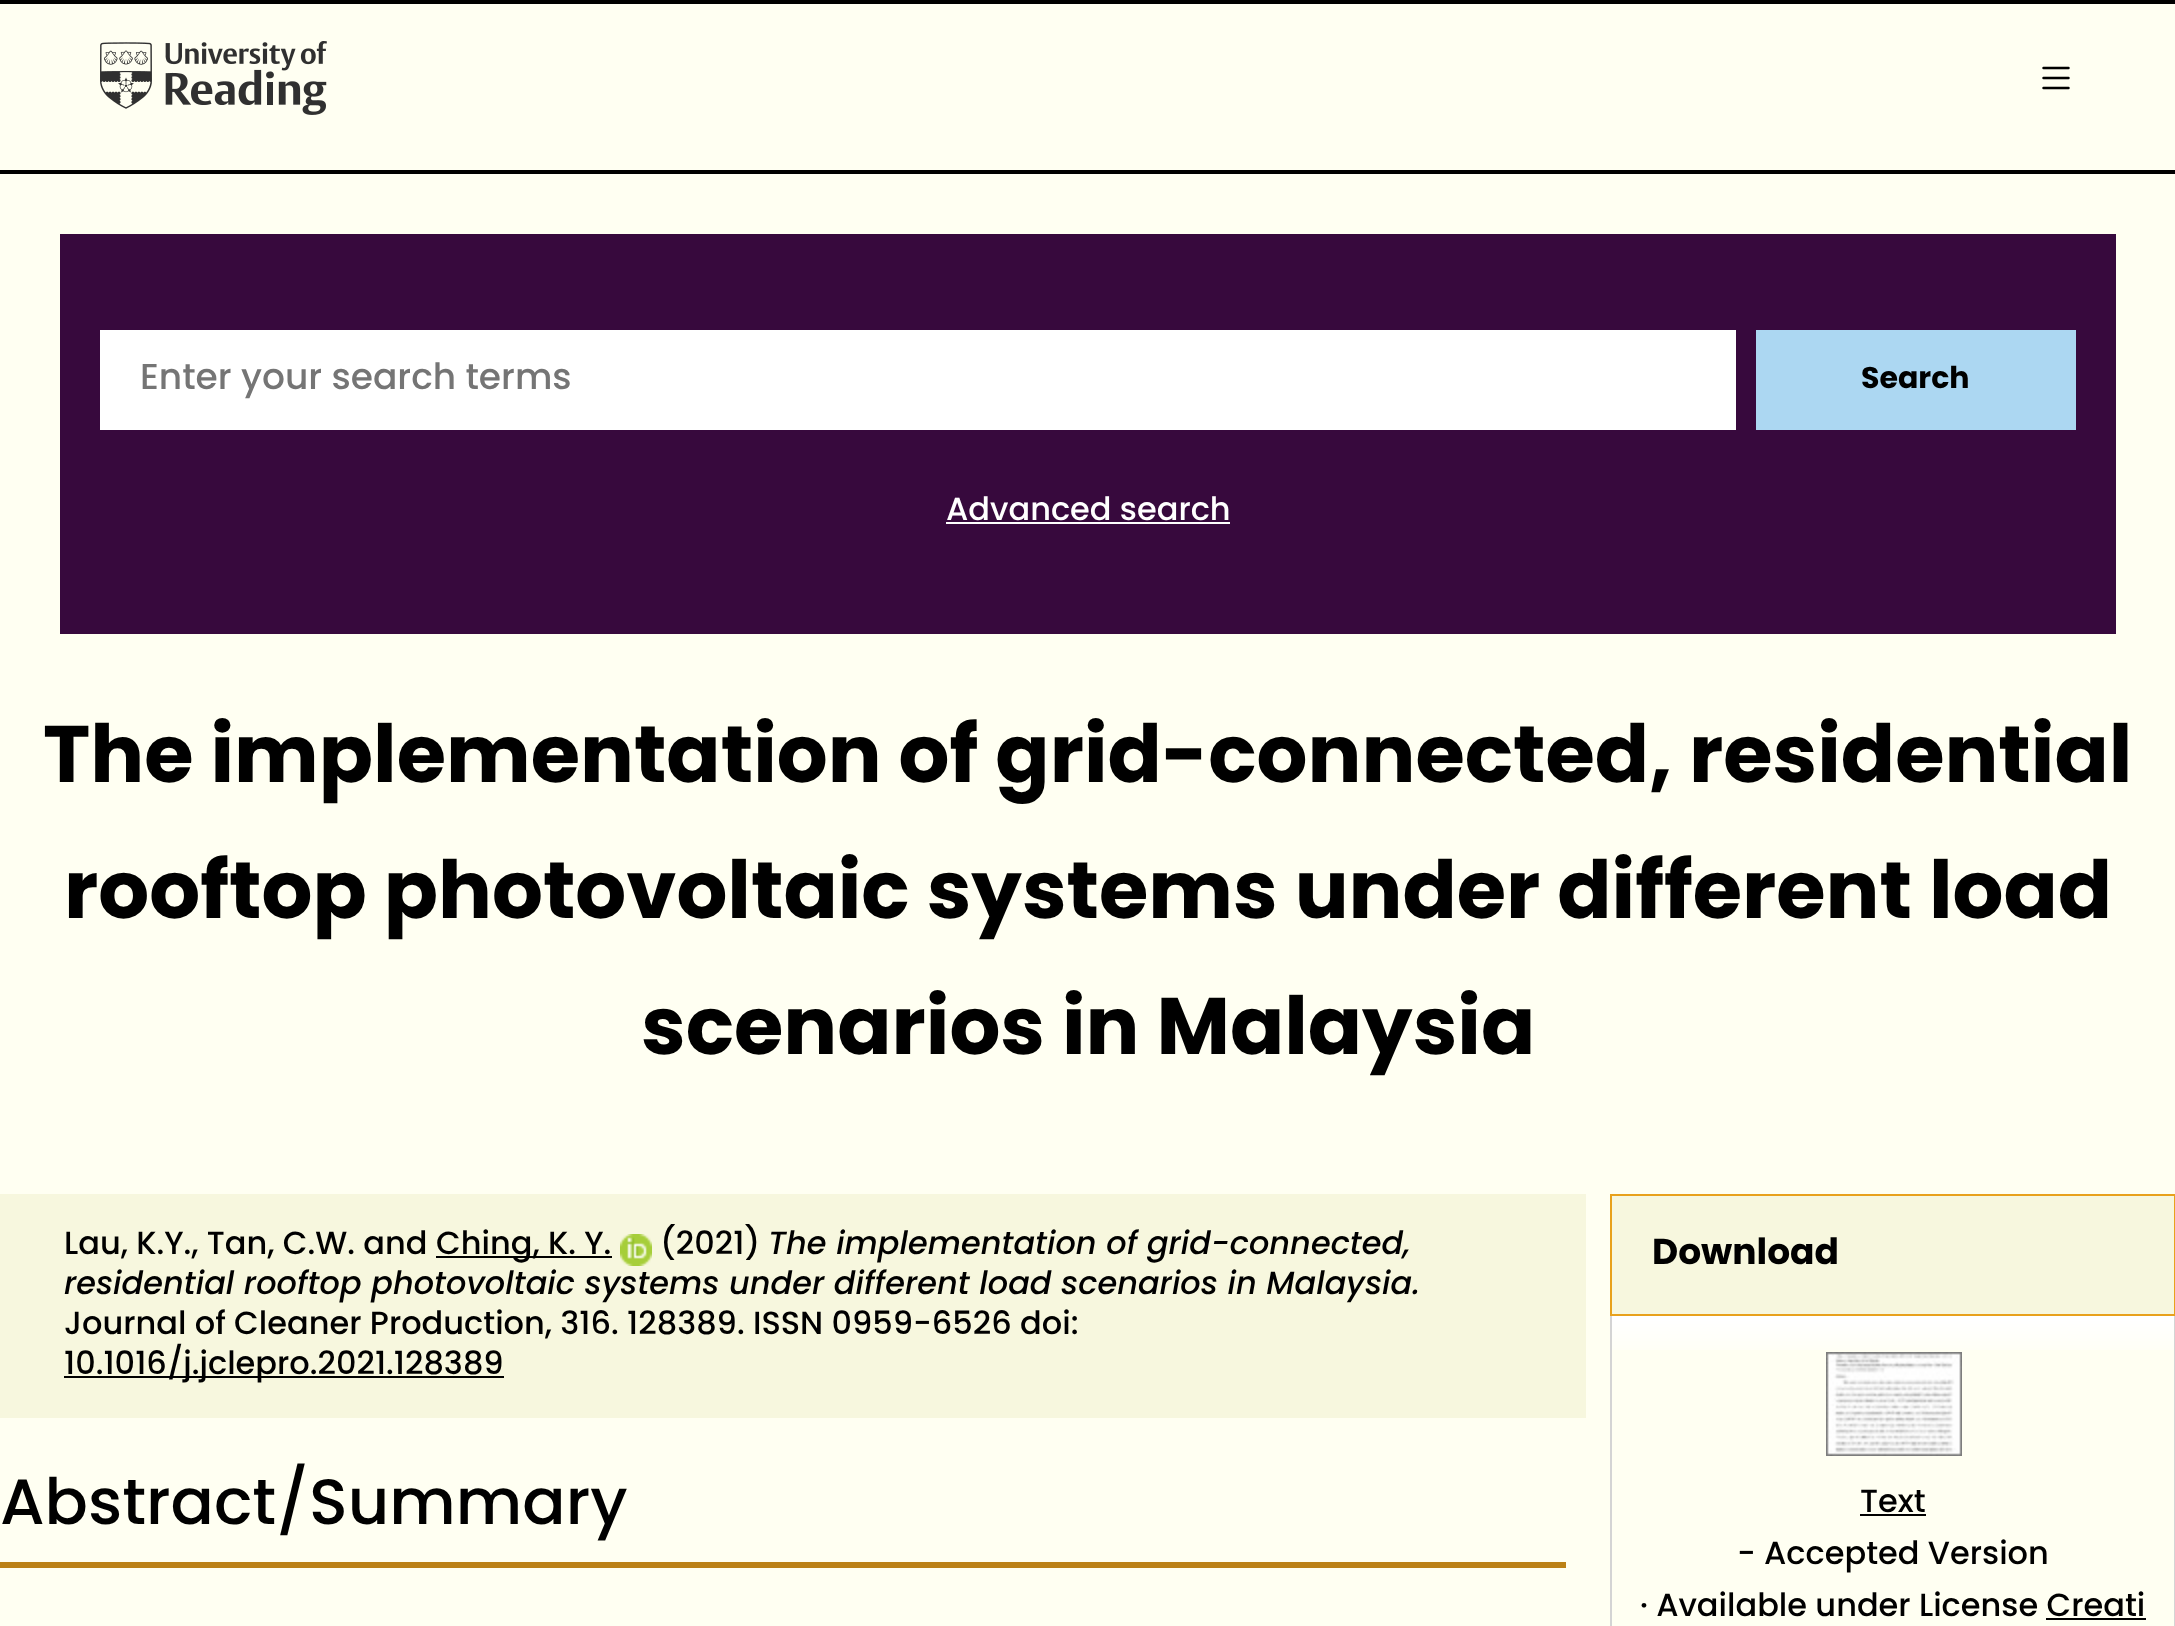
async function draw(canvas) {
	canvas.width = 2175;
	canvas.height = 1626;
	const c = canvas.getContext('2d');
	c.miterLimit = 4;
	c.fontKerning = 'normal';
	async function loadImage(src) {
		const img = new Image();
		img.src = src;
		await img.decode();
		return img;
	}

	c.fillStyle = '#fffff2';
	c.fillRect(0, 0, 2175, 1626);
	c.fillStyle = '#000';
	c.fillRect(0, 0, 2175, 4);
	c.fillRect(0, 170, 2175, 4);
	c.drawImage(await loadImage('img1.png'), 100, 41, 227, 74);
	c.drawImage(await loadImage('img2.png'), 2042, 66, 28, 24);
	c.fillStyle = '#37093d';
	c.fillRect(60, 234, 2056, 400);
	c.fillStyle = '#fff';
	c.fillRect(100, 330, 1636, 100);
	c.font = '500 36px Poppins';
	c.fillStyle = '#757575';
	c.fillText('Enter your search terms', 140, 389);
	c.fillStyle = '#acd7f2';
	c.fillRect(1756, 330, 320, 100);
	c.font = 'bold 30px Poppins';
	c.fillStyle = '#000';
	c.fillText('Search', 1861, 388);
	c.font = '500 32px Poppins';
	c.fillStyle = '#fff';
	c.fillText('Advanced search', 946, 520);
	c.fillRect(946, 522, 284, 2);
	c.font = 'bold 80px Poppins';
	c.fillStyle = '#000';
	for (const [text, x, y] of [
		['The implementation of grid-connected, residential', 43, 782],
		['rooftop photovoltaic systems under different load', 64, 918],
		['scenarios in Malaysia', 641, 1054],
	]) {
		c.fillText(text, x, y);
	}
	c.fillStyle = '#f7f7de';
	c.fillRect(0, 1194, 1586, 224);
	c.font = '500 32px Poppins';
	c.fillStyle = '#000';
	c.fillText('Lau, K.Y., Tan, C.W. and', 64, 1254);
	c.fillRect(436, 1256, 176, 2);
	c.fillText('Ching, K. Y.', 436, 1254);
	c.drawImage(await loadImage('img3.png'), 620, 1234, 32, 32);
	c.fillText('(2021)', 660, 1254);
	c.font = 'italic 500 32px Poppins';
	c.fillText('The implementation of grid-connected,', 768, 1254);
	c.fillText('residential rooftop photovoltaic systems under different load scenarios in Malaysia.', 64, 1294);
	c.font = '500 32px Poppins';
	c.fillText('Journal of Cleaner Production, 316. 128389. ISSN 0959-6526 doi:', 64, 1334);
	c.fillRect(64, 1376, 440, 2);
	c.fillText('10.1016/j.jclepro.2021.128389', 64, 1374);
	c.fillStyle = '#bb8116';
	c.fillRect(0, 1562, 1566, 6);
	c.font = '500 64px Poppins';
	c.fillStyle = '#000';
	c.fillText('Abstract/Summary', 0, 1524);
	c.fillStyle = '#f7f7de';
	c.beginPath();
	c.rect(1611, 1195, 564, 120);
	c.fill();
	c.strokeStyle = '#e8a11c';
	c.lineWidth = 2;
	c.stroke();
	c.font = 'bold 36px Poppins';
	c.fillStyle = '#000';
	c.fillText('Download', 1652, 1264);
	c.drawImage(await loadImage('img4.png'), 1612, 1316, 562, 34);
	c.fillStyle = '#d4d4d4';
	c.fillRect(2174, 1316, 1, 310);
	c.fillRect(1610, 1316, 2, 310);
	c.drawImage(await loadImage('img5.png'), 1826, 1352, 136, 104);
	c.font = '500 32px Poppins';
	c.fillStyle = '#000';
	c.fillText('Text', 1860, 1512);
	c.fillRect(1860, 1514, 66, 2);
	c.fillText('- Accepted Version', 1737, 1564);
	c.fillText('· Available under License Creati', 1640, 1616);
	c.fillRect(2046, 1618, 100, 2);
}

draw(document.querySelector('canvas'));
